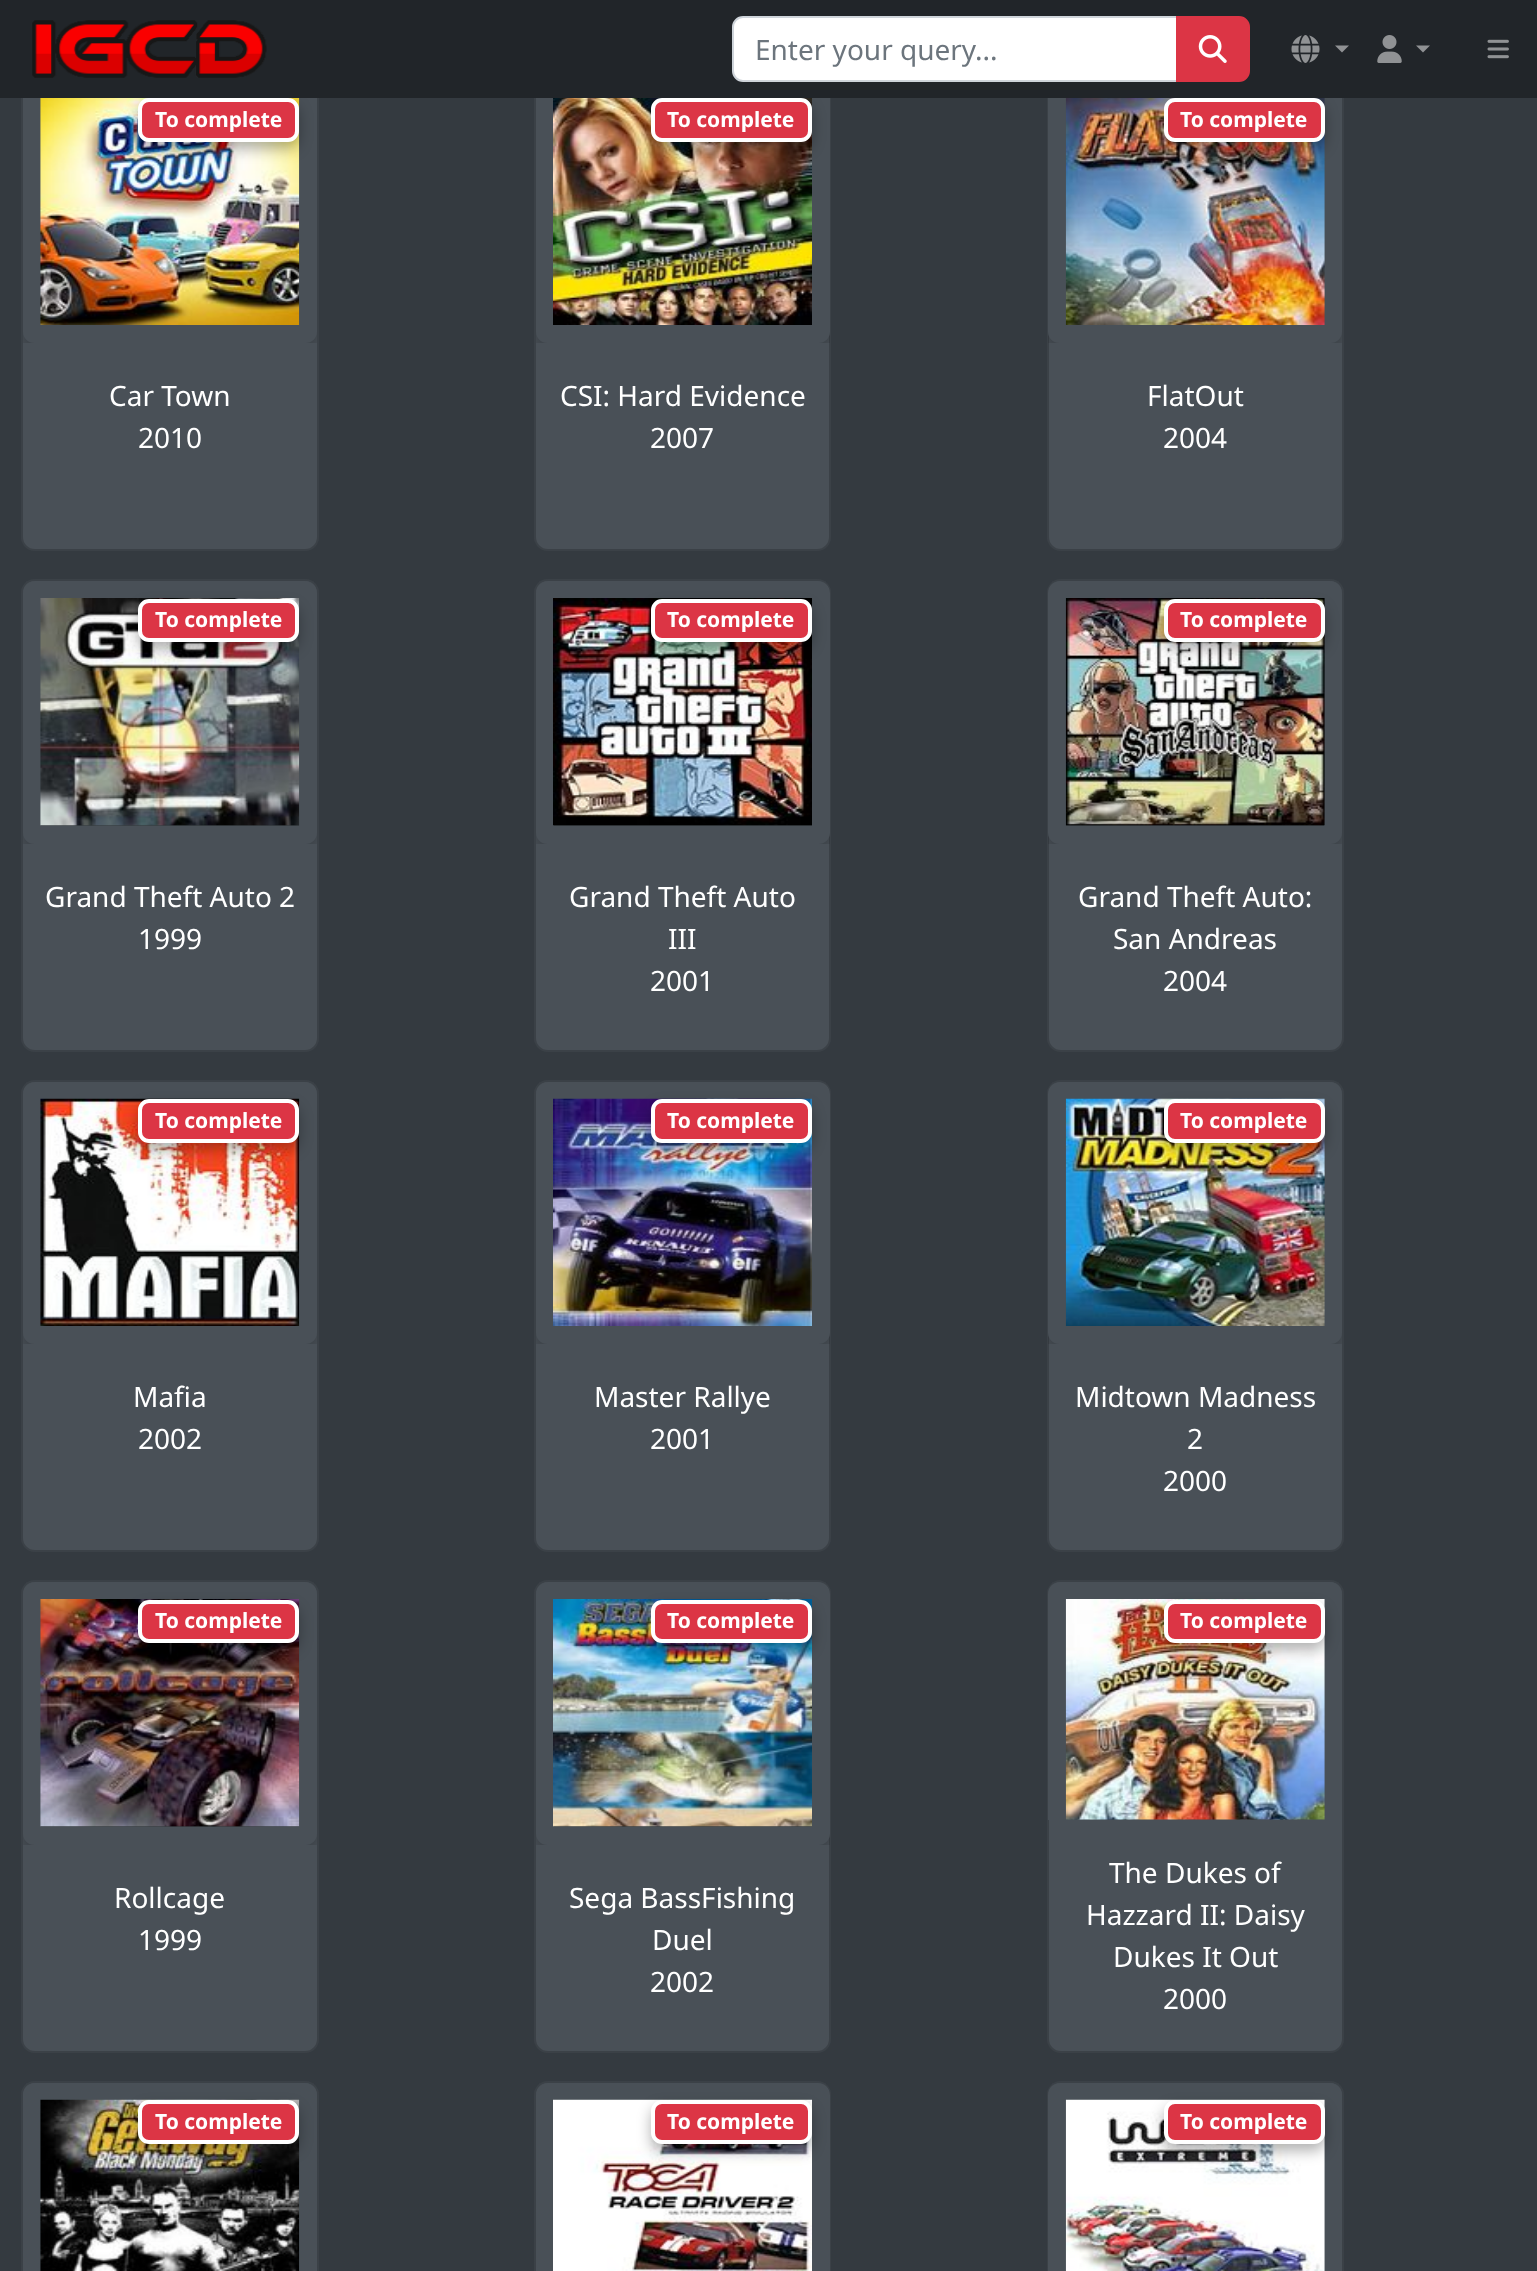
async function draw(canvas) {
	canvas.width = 1537;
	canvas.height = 2271;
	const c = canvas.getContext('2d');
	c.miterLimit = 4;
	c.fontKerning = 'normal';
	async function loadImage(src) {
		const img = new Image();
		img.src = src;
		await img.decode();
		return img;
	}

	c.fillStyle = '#343a40';
	c.fillRect(0, 0, 1537, 2271);
	c.fillStyle = '#495057';
	c.beginPath();
	c.roundRect(21, 79, 298, 472, 14);
	c.fill();
	c.beginPath();
	c.roundRect(22, 80, 296, 470, 13);
	c.strokeStyle = '#0000002e';
	c.lineWidth = 2;
	c.stroke();
	c.save();
	c.beginPath();
	c.rect(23, 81, 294, 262);
	c.clip();
	c.fillStyle = '#00000033';
	c.filter = 'blur(7px)';
	c.beginPath();
	c.roundRect(23, 88, 294, 262, 11);
	c.fill();
	c.filter = 'none';
	c.restore();
	c.beginPath();
	c.moveTo(35, 81);
	c.bezierCurveTo(28, 81, 23, 86, 23, 93);
	c.lineTo(23, 332);
	c.bezierCurveTo(23, 338, 28, 343, 34, 343);
	c.lineTo(306, 343);
	c.bezierCurveTo(312, 343, 317, 338, 317, 332);
	c.lineTo(317, 93);
	c.bezierCurveTo(317, 86, 312, 81, 305, 81);
	c.closePath();
	c.moveTo(41, 99);
	c.lineTo(41, 325);
	c.lineTo(299, 325);
	c.lineTo(299, 99);
	c.closePath();
	c.fill('evenodd');
	c.drawImage(await loadImage('img6.png'), 40, 98, 260, 227);
	c.fillStyle = '#0000004d';
	c.filter = 'blur(7px)';
	c.beginPath();
	c.roundRect(138, 105, 161, 44, 11);
	c.fill();
	c.filter = 'none';
	c.fillStyle = '#495057';
	c.beginPath();
	c.roundRect(534, 79, 297, 472, 14);
	c.fill();
	c.beginPath();
	c.roundRect(535, 80, 295, 470, 13);
	c.stroke();
	c.save();
	c.beginPath();
	c.rect(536, 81, 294, 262);
	c.clip();
	c.fillStyle = '#00000033';
	c.filter = 'blur(7px)';
	c.beginPath();
	c.roundRect(536, 88, 294, 262, 11);
	c.fill();
	c.filter = 'none';
	c.restore();
	c.beginPath();
	c.moveTo(548, 81);
	c.bezierCurveTo(541, 81, 536, 86, 536, 93);
	c.lineTo(536, 332);
	c.bezierCurveTo(536, 338, 541, 343, 547, 343);
	c.lineTo(819, 343);
	c.bezierCurveTo(825, 343, 830, 338, 830, 332);
	c.lineTo(830, 93);
	c.bezierCurveTo(830, 86, 825, 81, 818, 81);
	c.closePath();
	c.moveTo(554, 99);
	c.lineTo(554, 325);
	c.lineTo(812, 325);
	c.lineTo(812, 99);
	c.closePath();
	c.fill('evenodd');
	c.drawImage(await loadImage('img7.png'), 553, 98, 259, 227);
	c.fillStyle = '#0000004d';
	c.filter = 'blur(7px)';
	c.beginPath();
	c.roundRect(651, 105, 161, 44, 11);
	c.fill();
	c.filter = 'none';
	c.fillStyle = '#495057';
	c.beginPath();
	c.roundRect(1047, 79, 297, 472, 14);
	c.fill();
	c.beginPath();
	c.roundRect(1048, 80, 295, 470, 13);
	c.stroke();
	c.save();
	c.beginPath();
	c.rect(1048, 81, 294, 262);
	c.clip();
	c.fillStyle = '#00000033';
	c.filter = 'blur(7px)';
	c.beginPath();
	c.roundRect(1048, 88, 294, 262, 11);
	c.fill();
	c.filter = 'none';
	c.restore();
	c.beginPath();
	c.moveTo(1060, 81);
	c.bezierCurveTo(1053, 81, 1048, 86, 1048, 93);
	c.lineTo(1048, 332);
	c.bezierCurveTo(1048, 338, 1053, 343, 1059, 343);
	c.lineTo(1331, 343);
	c.bezierCurveTo(1337, 343, 1342, 338, 1342, 332);
	c.lineTo(1342, 93);
	c.bezierCurveTo(1342, 86, 1337, 81, 1330, 81);
	c.closePath();
	c.moveTo(1066, 99);
	c.lineTo(1066, 325);
	c.lineTo(1324, 325);
	c.lineTo(1324, 99);
	c.closePath();
	c.fill('evenodd');
	c.drawImage(await loadImage('img8.png'), 1065, 98, 260, 227);
	c.fillStyle = '#0000004d';
	c.filter = 'blur(7px)';
	c.beginPath();
	c.roundRect(1164, 105, 161, 44, 11);
	c.fill();
	c.filter = 'none';
	c.fillStyle = '#212529';
	c.fillRect(0, 0, 1537, 98);
	c.drawImage(await loadImage('img1.png'), 32, 20, 235, 58);
	c.fillStyle = '#fff';
	c.beginPath();
	c.roundRect(733, 17, 444, 64, [10, 0, 0, 10]);
	c.fill();
	c.strokeStyle = '#ced4da';
	c.stroke();
	c.font = '28px Noto Sans';
	c.fillStyle = '#6c757d';
	c.fillText('Enter your query...', 755, 60);
	c.fillStyle = '#dc3545';
	c.beginPath();
	c.roundRect(1177, 17, 72, 64, [0, 10, 10, 0]);
	c.fill();
	c.strokeStyle = '#dc3545';
	c.stroke();
	c.drawImage(await loadImage('img2.png'), 1198, 35, 29, 28);
	c.drawImage(await loadImage('img3.png'), 1291, 35, 29, 28);
	c.fillStyle = '#909294';
	c.beginPath();
	c.moveTo(1335, 45.5);
	c.lineTo(1349, 45.5);
	c.lineTo(1342, 52.5);
	c.closePath();
	c.fill();
	c.drawImage(await loadImage('img4.png'), 1377, 35, 25, 28);
	c.beginPath();
	c.moveTo(1416, 45.5);
	c.lineTo(1430, 45.5);
	c.lineTo(1423, 52.5);
	c.closePath();
	c.fill();
	c.drawImage(await loadImage('img5.png'), 1487, 39, 22, 20);
	c.fillStyle = '#dc3545';
	c.beginPath();
	c.roundRect(140, 100, 157, 40, 9);
	c.fill();
	c.strokeStyle = '#fff';
	c.lineWidth = 4;
	c.stroke();
	c.font = 'bold 21px Noto Sans';
	c.fillStyle = '#fff';
	c.fillText('To complete', 155, 127);
	c.font = '28px Noto Sans';
	c.fillText('Car Town', 109, 406);
	c.fillText('2010', 138, 448);
	c.fillStyle = '#dc3545';
	c.beginPath();
	c.roundRect(653, 100, 157, 40, 9);
	c.fill();
	c.stroke();
	c.font = 'bold 21px Noto Sans';
	c.fillStyle = '#fff';
	c.fillText('To complete', 667, 127);
	c.font = '28px Noto Sans';
	c.fillText('CSI: Hard Evidence', 560, 406);
	c.fillText('2007', 650, 448);
	c.fillStyle = '#dc3545';
	c.beginPath();
	c.roundRect(1166, 100, 157, 40, 9);
	c.fill();
	c.stroke();
	c.font = 'bold 21px Noto Sans';
	c.fillStyle = '#fff';
	c.fillText('To complete', 1180, 127);
	c.font = '28px Noto Sans';
	c.fillText('FlatOut', 1147, 406);
	c.fillText('2004', 1163, 448);
	c.fillStyle = '#495057';
	c.beginPath();
	c.roundRect(21, 579, 298, 473, 14);
	c.fill();
	c.beginPath();
	c.roundRect(22, 580, 296, 471, 13);
	c.strokeStyle = '#0000002e';
	c.lineWidth = 2;
	c.stroke();
	c.save();
	c.beginPath();
	c.roundRect(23, 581, 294, 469, 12);
	c.clip();
	c.beginPath();
	c.rect(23, 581, 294, 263);
	c.clip();
	c.fillStyle = '#00000033';
	c.filter = 'blur(7px)';
	c.beginPath();
	c.roundRect(23, 588, 294, 263, 11);
	c.fill();
	c.filter = 'none';
	c.restore();
	c.beginPath();
	c.moveTo(35, 581);
	c.bezierCurveTo(28, 581, 23, 586, 23, 593);
	c.lineTo(23, 833);
	c.bezierCurveTo(23, 839, 28, 844, 34, 844);
	c.lineTo(306, 844);
	c.bezierCurveTo(312, 844, 317, 839, 317, 833);
	c.lineTo(317, 593);
	c.bezierCurveTo(317, 586, 312, 581, 305, 581);
	c.closePath();
	c.moveTo(41, 599);
	c.lineTo(41, 826);
	c.lineTo(299, 826);
	c.lineTo(299, 599);
	c.closePath();
	c.fill('evenodd');
	c.drawImage(await loadImage('img9.png'), 40, 598, 260, 228);
	c.fillStyle = '#0000004d';
	c.filter = 'blur(7px)';
	c.beginPath();
	c.roundRect(138, 606, 161, 43, 11);
	c.fill();
	c.filter = 'none';
	c.fillStyle = '#dc3545';
	c.beginPath();
	c.roundRect(140, 601, 157, 39, 9);
	c.fill();
	c.strokeStyle = '#fff';
	c.lineWidth = 4;
	c.stroke();
	c.font = 'bold 21px Noto Sans';
	c.fillStyle = '#fff';
	c.fillText('To complete', 155, 627);
	c.font = '28px Noto Sans';
	c.fillText('Grand Theft Auto 2', 45, 907);
	c.fillText('1999', 138, 949);
	c.fillStyle = '#495057';
	c.beginPath();
	c.roundRect(534, 579, 297, 473, 14);
	c.fill();
	c.beginPath();
	c.roundRect(535, 580, 295, 471, 13);
	c.strokeStyle = '#0000002e';
	c.lineWidth = 2;
	c.stroke();
	c.save();
	c.beginPath();
	c.roundRect(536, 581, 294, 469, 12);
	c.clip();
	c.beginPath();
	c.rect(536, 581, 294, 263);
	c.clip();
	c.fillStyle = '#00000033';
	c.filter = 'blur(7px)';
	c.beginPath();
	c.roundRect(536, 588, 294, 263, 11);
	c.fill();
	c.filter = 'none';
	c.restore();
	c.beginPath();
	c.moveTo(548, 581);
	c.bezierCurveTo(541, 581, 536, 586, 536, 593);
	c.lineTo(536, 833);
	c.bezierCurveTo(536, 839, 541, 844, 547, 844);
	c.lineTo(819, 844);
	c.bezierCurveTo(825, 844, 830, 839, 830, 833);
	c.lineTo(830, 593);
	c.bezierCurveTo(830, 586, 825, 581, 818, 581);
	c.closePath();
	c.moveTo(554, 599);
	c.lineTo(554, 826);
	c.lineTo(812, 826);
	c.lineTo(812, 599);
	c.closePath();
	c.fill('evenodd');
	c.drawImage(await loadImage('img10.png'), 553, 598, 259, 228);
	c.fillStyle = '#0000004d';
	c.filter = 'blur(7px)';
	c.beginPath();
	c.roundRect(651, 606, 161, 43, 11);
	c.fill();
	c.filter = 'none';
	c.fillStyle = '#dc3545';
	c.beginPath();
	c.roundRect(653, 601, 157, 39, 9);
	c.fill();
	c.strokeStyle = '#fff';
	c.lineWidth = 4;
	c.stroke();
	c.font = 'bold 21px Noto Sans';
	c.fillStyle = '#fff';
	c.fillText('To complete', 667, 627);
	c.font = '28px Noto Sans';
	for (const [text, x, y] of [
		['Grand Theft Auto', 569, 907],
		['III', 668, 949],
		['2001', 650, 991],
	]) {
		c.fillText(text, x, y);
	}
	c.fillStyle = '#495057';
	c.beginPath();
	c.roundRect(1047, 579, 297, 473, 14);
	c.fill();
	c.beginPath();
	c.roundRect(1048, 580, 295, 471, 13);
	c.strokeStyle = '#0000002e';
	c.lineWidth = 2;
	c.stroke();
	c.save();
	c.beginPath();
	c.roundRect(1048, 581, 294, 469, 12);
	c.clip();
	c.beginPath();
	c.rect(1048, 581, 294, 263);
	c.clip();
	c.fillStyle = '#00000033';
	c.filter = 'blur(7px)';
	c.beginPath();
	c.roundRect(1048, 588, 294, 263, 11);
	c.fill();
	c.filter = 'none';
	c.restore();
	c.beginPath();
	c.moveTo(1060, 581);
	c.bezierCurveTo(1053, 581, 1048, 586, 1048, 593);
	c.lineTo(1048, 833);
	c.bezierCurveTo(1048, 839, 1053, 844, 1059, 844);
	c.lineTo(1331, 844);
	c.bezierCurveTo(1337, 844, 1342, 839, 1342, 833);
	c.lineTo(1342, 593);
	c.bezierCurveTo(1342, 586, 1337, 581, 1330, 581);
	c.closePath();
	c.moveTo(1066, 599);
	c.lineTo(1066, 826);
	c.lineTo(1324, 826);
	c.lineTo(1324, 599);
	c.closePath();
	c.fill('evenodd');
	c.drawImage(await loadImage('img11.png'), 1065, 598, 260, 228);
	c.fillStyle = '#0000004d';
	c.filter = 'blur(7px)';
	c.beginPath();
	c.roundRect(1164, 606, 161, 43, 11);
	c.fill();
	c.filter = 'none';
	c.fillStyle = '#dc3545';
	c.beginPath();
	c.roundRect(1166, 601, 157, 39, 9);
	c.fill();
	c.strokeStyle = '#fff';
	c.lineWidth = 4;
	c.stroke();
	c.font = 'bold 21px Noto Sans';
	c.fillStyle = '#fff';
	c.fillText('To complete', 1180, 627);
	c.font = '28px Noto Sans';
	for (const [text, x, y] of [
		['Grand Theft Auto:', 1078, 907],
		['San Andreas', 1113, 949],
		['2004', 1163, 991],
	]) {
		c.fillText(text, x, y);
	}
	c.fillStyle = '#495057';
	c.beginPath();
	c.roundRect(21, 1080, 298, 472, 14);
	c.fill();
	c.beginPath();
	c.roundRect(22, 1081, 296, 470, 13);
	c.strokeStyle = '#0000002e';
	c.lineWidth = 2;
	c.stroke();
	c.save();
	c.beginPath();
	c.roundRect(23, 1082, 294, 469, 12);
	c.clip();
	c.beginPath();
	c.rect(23, 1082, 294, 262);
	c.clip();
	c.fillStyle = '#00000033';
	c.filter = 'blur(7px)';
	c.beginPath();
	c.roundRect(23, 1089, 294, 262, 11);
	c.fill();
	c.filter = 'none';
	c.restore();
	c.beginPath();
	c.moveTo(35, 1082);
	c.bezierCurveTo(28, 1082, 23, 1087, 23, 1094);
	c.lineTo(23, 1333);
	c.bezierCurveTo(23, 1339, 28, 1344, 34, 1344);
	c.lineTo(306, 1344);
	c.bezierCurveTo(312, 1344, 317, 1339, 317, 1333);
	c.lineTo(317, 1094);
	c.bezierCurveTo(317, 1087, 312, 1082, 305, 1082);
	c.closePath();
	c.moveTo(41, 1100);
	c.lineTo(41, 1326);
	c.lineTo(299, 1326);
	c.lineTo(299, 1100);
	c.closePath();
	c.fill('evenodd');
	c.drawImage(await loadImage('img12.png'), 40, 1098, 260, 228);
	c.fillStyle = '#0000004d';
	c.filter = 'blur(7px)';
	c.beginPath();
	c.roundRect(138, 1106, 161, 44, 11);
	c.fill();
	c.filter = 'none';
	c.fillStyle = '#dc3545';
	c.beginPath();
	c.roundRect(140, 1101, 157, 40, 9);
	c.fill();
	c.strokeStyle = '#fff';
	c.lineWidth = 4;
	c.stroke();
	c.font = 'bold 21px Noto Sans';
	c.fillStyle = '#fff';
	c.fillText('To complete', 155, 1128);
	c.font = '28px Noto Sans';
	c.fillText('Mafia', 133, 1407);
	c.fillText('2002', 138, 1449);
	c.fillStyle = '#495057';
	c.beginPath();
	c.roundRect(534, 1080, 297, 472, 14);
	c.fill();
	c.beginPath();
	c.roundRect(535, 1081, 295, 470, 13);
	c.strokeStyle = '#0000002e';
	c.lineWidth = 2;
	c.stroke();
	c.save();
	c.beginPath();
	c.roundRect(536, 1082, 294, 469, 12);
	c.clip();
	c.beginPath();
	c.rect(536, 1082, 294, 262);
	c.clip();
	c.fillStyle = '#00000033';
	c.filter = 'blur(7px)';
	c.beginPath();
	c.roundRect(536, 1089, 294, 262, 11);
	c.fill();
	c.filter = 'none';
	c.restore();
	c.beginPath();
	c.moveTo(548, 1082);
	c.bezierCurveTo(541, 1082, 536, 1087, 536, 1094);
	c.lineTo(536, 1333);
	c.bezierCurveTo(536, 1339, 541, 1344, 547, 1344);
	c.lineTo(819, 1344);
	c.bezierCurveTo(825, 1344, 830, 1339, 830, 1333);
	c.lineTo(830, 1094);
	c.bezierCurveTo(830, 1087, 825, 1082, 818, 1082);
	c.closePath();
	c.moveTo(554, 1100);
	c.lineTo(554, 1326);
	c.lineTo(812, 1326);
	c.lineTo(812, 1100);
	c.closePath();
	c.fill('evenodd');
	c.drawImage(await loadImage('img13.png'), 553, 1098, 259, 228);
	c.fillStyle = '#0000004d';
	c.filter = 'blur(7px)';
	c.beginPath();
	c.roundRect(651, 1106, 161, 44, 11);
	c.fill();
	c.filter = 'none';
	c.fillStyle = '#dc3545';
	c.beginPath();
	c.roundRect(653, 1101, 157, 40, 9);
	c.fill();
	c.strokeStyle = '#fff';
	c.lineWidth = 4;
	c.stroke();
	c.font = 'bold 21px Noto Sans';
	c.fillStyle = '#fff';
	c.fillText('To complete', 667, 1128);
	c.font = '28px Noto Sans';
	c.fillText('Master Rallye', 594, 1407);
	c.fillText('2001', 650, 1449);
	c.fillStyle = '#495057';
	c.beginPath();
	c.roundRect(1047, 1080, 297, 472, 14);
	c.fill();
	c.beginPath();
	c.roundRect(1048, 1081, 295, 470, 13);
	c.strokeStyle = '#0000002e';
	c.lineWidth = 2;
	c.stroke();
	c.save();
	c.beginPath();
	c.roundRect(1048, 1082, 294, 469, 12);
	c.clip();
	c.beginPath();
	c.rect(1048, 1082, 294, 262);
	c.clip();
	c.fillStyle = '#00000033';
	c.filter = 'blur(7px)';
	c.beginPath();
	c.roundRect(1048, 1089, 294, 262, 11);
	c.fill();
	c.filter = 'none';
	c.restore();
	c.beginPath();
	c.moveTo(1060, 1082);
	c.bezierCurveTo(1053, 1082, 1048, 1087, 1048, 1094);
	c.lineTo(1048, 1333);
	c.bezierCurveTo(1048, 1339, 1053, 1344, 1059, 1344);
	c.lineTo(1331, 1344);
	c.bezierCurveTo(1337, 1344, 1342, 1339, 1342, 1333);
	c.lineTo(1342, 1094);
	c.bezierCurveTo(1342, 1087, 1337, 1082, 1330, 1082);
	c.closePath();
	c.moveTo(1066, 1100);
	c.lineTo(1066, 1326);
	c.lineTo(1324, 1326);
	c.lineTo(1324, 1100);
	c.closePath();
	c.fill('evenodd');
	c.drawImage(await loadImage('img14.png'), 1065, 1098, 260, 228);
	c.fillStyle = '#0000004d';
	c.filter = 'blur(7px)';
	c.beginPath();
	c.roundRect(1164, 1106, 161, 44, 11);
	c.fill();
	c.filter = 'none';
	c.fillStyle = '#dc3545';
	c.beginPath();
	c.roundRect(1166, 1101, 157, 40, 9);
	c.fill();
	c.strokeStyle = '#fff';
	c.lineWidth = 4;
	c.stroke();
	c.font = 'bold 21px Noto Sans';
	c.fillStyle = '#fff';
	c.fillText('To complete', 1180, 1128);
	c.font = '28px Noto Sans';
	for (const [text, x, y] of [
		['Midtown Madness', 1075, 1407],
		['2', 1187, 1449],
		['2000', 1163, 1491],
	]) {
		c.fillText(text, x, y);
	}
	c.fillStyle = '#495057';
	c.beginPath();
	c.roundRect(21, 1580, 298, 473, 14);
	c.fill();
	c.beginPath();
	c.roundRect(22, 1581, 296, 471, 13);
	c.strokeStyle = '#0000002e';
	c.lineWidth = 2;
	c.stroke();
	c.save();
	c.beginPath();
	c.roundRect(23, 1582, 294, 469, 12);
	c.clip();
	c.beginPath();
	c.rect(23, 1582, 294, 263);
	c.clip();
	c.fillStyle = '#00000033';
	c.filter = 'blur(7px)';
	c.beginPath();
	c.roundRect(23, 1589, 294, 263, 11);
	c.fill();
	c.filter = 'none';
	c.restore();
	c.beginPath();
	c.moveTo(35, 1582);
	c.bezierCurveTo(28, 1582, 23, 1587, 23, 1594);
	c.lineTo(23, 1834);
	c.bezierCurveTo(23, 1840, 28, 1845, 34, 1845);
	c.lineTo(306, 1845);
	c.bezierCurveTo(312, 1845, 317, 1840, 317, 1834);
	c.lineTo(317, 1594);
	c.bezierCurveTo(317, 1587, 312, 1582, 305, 1582);
	c.closePath();
	c.moveTo(41, 1600);
	c.lineTo(41, 1827);
	c.lineTo(299, 1827);
	c.lineTo(299, 1600);
	c.closePath();
	c.fill('evenodd');
	c.drawImage(await loadImage('img15.png'), 40, 1599, 260, 228);
	c.fillStyle = '#0000004d';
	c.filter = 'blur(7px)';
	c.beginPath();
	c.roundRect(138, 1607, 161, 43, 11);
	c.fill();
	c.filter = 'none';
	c.fillStyle = '#dc3545';
	c.beginPath();
	c.roundRect(140, 1602, 157, 39, 9);
	c.fill();
	c.strokeStyle = '#fff';
	c.lineWidth = 4;
	c.stroke();
	c.font = 'bold 21px Noto Sans';
	c.fillStyle = '#fff';
	c.fillText('To complete', 155, 1628);
	c.font = '28px Noto Sans';
	c.fillText('Rollcage', 114, 1908);
	c.fillText('1999', 138, 1950);
	c.fillStyle = '#495057';
	c.beginPath();
	c.roundRect(534, 1580, 297, 473, 14);
	c.fill();
	c.beginPath();
	c.roundRect(535, 1581, 295, 471, 13);
	c.strokeStyle = '#0000002e';
	c.lineWidth = 2;
	c.stroke();
	c.save();
	c.beginPath();
	c.roundRect(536, 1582, 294, 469, 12);
	c.clip();
	c.beginPath();
	c.rect(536, 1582, 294, 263);
	c.clip();
	c.fillStyle = '#00000033';
	c.filter = 'blur(7px)';
	c.beginPath();
	c.roundRect(536, 1589, 294, 263, 11);
	c.fill();
	c.filter = 'none';
	c.restore();
	c.beginPath();
	c.moveTo(548, 1582);
	c.bezierCurveTo(541, 1582, 536, 1587, 536, 1594);
	c.lineTo(536, 1834);
	c.bezierCurveTo(536, 1840, 541, 1845, 547, 1845);
	c.lineTo(819, 1845);
	c.bezierCurveTo(825, 1845, 830, 1840, 830, 1834);
	c.lineTo(830, 1594);
	c.bezierCurveTo(830, 1587, 825, 1582, 818, 1582);
	c.closePath();
	c.moveTo(554, 1600);
	c.lineTo(554, 1827);
	c.lineTo(812, 1827);
	c.lineTo(812, 1600);
	c.closePath();
	c.fill('evenodd');
	c.drawImage(await loadImage('img16.png'), 553, 1599, 259, 228);
	c.fillStyle = '#0000004d';
	c.filter = 'blur(7px)';
	c.beginPath();
	c.roundRect(651, 1607, 161, 43, 11);
	c.fill();
	c.filter = 'none';
	c.fillStyle = '#dc3545';
	c.beginPath();
	c.roundRect(653, 1602, 157, 39, 9);
	c.fill();
	c.strokeStyle = '#fff';
	c.lineWidth = 4;
	c.stroke();
	c.font = 'bold 21px Noto Sans';
	c.fillStyle = '#fff';
	c.fillText('To complete', 667, 1628);
	c.font = '28px Noto Sans';
	for (const [text, x, y] of [
		['Sega BassFishing', 569, 1908],
		['Duel', 652, 1950],
		['2002', 650, 1992],
	]) {
		c.fillText(text, x, y);
	}
	c.fillStyle = '#495057';
	c.beginPath();
	c.roundRect(1047, 1580, 297, 473, 14);
	c.fill();
	c.beginPath();
	c.roundRect(1048, 1581, 295, 471, 13);
	c.strokeStyle = '#0000002e';
	c.lineWidth = 2;
	c.stroke();
	c.save();
	c.beginPath();
	c.rect(1048, 1582, 294, 238);
	c.clip();
	c.beginPath();
	c.moveTo(1060, 1582);
	c.bezierCurveTo(1053, 1582, 1048, 1587, 1048, 1594);
	c.lineTo(1048, 1834);
	c.bezierCurveTo(1048, 1840, 1053, 1845, 1059, 1845);
	c.lineTo(1331, 1845);
	c.bezierCurveTo(1337, 1845, 1342, 1840, 1342, 1834);
	c.lineTo(1342, 1594);
	c.bezierCurveTo(1342, 1587, 1337, 1582, 1330, 1582);
	c.closePath();
	c.moveTo(1066, 1600);
	c.lineTo(1066, 1827);
	c.lineTo(1324, 1827);
	c.lineTo(1324, 1600);
	c.closePath();
	c.fill('evenodd');
	c.restore();
	c.drawImage(await loadImage('img17.png'), 1065, 1599, 260, 221);
	c.fillStyle = '#0000004d';
	c.filter = 'blur(7px)';
	c.beginPath();
	c.roundRect(1164, 1607, 161, 43, 11);
	c.fill();
	c.filter = 'none';
	c.fillStyle = '#dc3545';
	c.beginPath();
	c.roundRect(1166, 1602, 157, 39, 9);
	c.fill();
	c.strokeStyle = '#fff';
	c.lineWidth = 4;
	c.stroke();
	c.font = 'bold 21px Noto Sans';
	c.fillStyle = '#fff';
	c.fillText('To complete', 1180, 1628);
	c.font = '28px Noto Sans';
	for (const [text, x, y] of [
		['The Dukes of', 1109, 1883],
		['Hazzard II: Daisy', 1086, 1925],
		['Dukes It Out', 1113, 1967],
		['2000', 1163, 2009],
	]) {
		c.fillText(text, x, y);
	}
	c.fillStyle = '#495057';
	c.beginPath();
	c.roundRect(21, 2081, 298, 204, 14);
	c.fill();
	c.beginPath();
	c.roundRect(22, 2082, 296, 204, 13);
	c.strokeStyle = '#0000002e';
	c.lineWidth = 2;
	c.stroke();
	c.beginPath();
	c.moveTo(35, 2083);
	c.bezierCurveTo(28, 2083, 23, 2088, 23, 2095);
	c.lineTo(23, 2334);
	c.bezierCurveTo(23, 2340, 28, 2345, 34, 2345);
	c.lineTo(306, 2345);
	c.bezierCurveTo(312, 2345, 317, 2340, 317, 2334);
	c.lineTo(317, 2095);
	c.bezierCurveTo(317, 2088, 312, 2083, 305, 2083);
	c.closePath();
	c.moveTo(41, 2101);
	c.lineTo(41, 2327);
	c.lineTo(299, 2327);
	c.lineTo(299, 2101);
	c.closePath();
	c.fill('evenodd');
	c.drawImage(await loadImage('img18.png'), 40, 2099, 260, 172);
	c.fillStyle = '#0000004d';
	c.filter = 'blur(7px)';
	c.beginPath();
	c.roundRect(138, 2107, 161, 44, 11);
	c.fill();
	c.filter = 'none';
	c.fillStyle = '#dc3545';
	c.beginPath();
	c.roundRect(140, 2102, 157, 40, 9);
	c.fill();
	c.strokeStyle = '#fff';
	c.lineWidth = 4;
	c.stroke();
	c.font = 'bold 21px Noto Sans';
	c.fillStyle = '#fff';
	c.fillText('To complete', 155, 2129);
	c.fillStyle = '#495057';
	c.beginPath();
	c.roundRect(534, 2081, 297, 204, 14);
	c.fill();
	c.beginPath();
	c.roundRect(535, 2082, 295, 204, 13);
	c.strokeStyle = '#0000002e';
	c.lineWidth = 2;
	c.stroke();
	c.save();
	c.beginPath();
	c.roundRect(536, 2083, 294, 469, 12);
	c.clip();
	c.fillStyle = '#00000033';
	c.filter = 'blur(7px)';
	c.beginPath();
	c.roundRect(536, 2090, 294, 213, 11);
	c.fill();
	c.filter = 'none';
	c.restore();
	c.beginPath();
	c.moveTo(548, 2083);
	c.bezierCurveTo(541, 2083, 536, 2088, 536, 2095);
	c.lineTo(536, 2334);
	c.bezierCurveTo(536, 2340, 541, 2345, 547, 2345);
	c.lineTo(819, 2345);
	c.bezierCurveTo(825, 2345, 830, 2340, 830, 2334);
	c.lineTo(830, 2095);
	c.bezierCurveTo(830, 2088, 825, 2083, 818, 2083);
	c.closePath();
	c.moveTo(554, 2101);
	c.lineTo(554, 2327);
	c.lineTo(812, 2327);
	c.lineTo(812, 2101);
	c.closePath();
	c.fill('evenodd');
	c.drawImage(await loadImage('img19.png'), 553, 2099, 259, 172);
	c.fillStyle = '#0000004d';
	c.filter = 'blur(7px)';
	c.beginPath();
	c.roundRect(651, 2107, 161, 44, 11);
	c.fill();
	c.filter = 'none';
	c.fillStyle = '#dc3545';
	c.beginPath();
	c.roundRect(653, 2102, 157, 40, 9);
	c.fill();
	c.strokeStyle = '#fff';
	c.lineWidth = 4;
	c.stroke();
	c.fillStyle = '#fff';
	c.fillText('To complete', 667, 2129);
	c.fillStyle = '#495057';
	c.beginPath();
	c.roundRect(1047, 2081, 297, 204, 14);
	c.fill();
	c.beginPath();
	c.roundRect(1048, 2082, 295, 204, 13);
	c.strokeStyle = '#0000002e';
	c.lineWidth = 2;
	c.stroke();
	c.beginPath();
	c.moveTo(1060, 2083);
	c.bezierCurveTo(1053, 2083, 1048, 2088, 1048, 2095);
	c.lineTo(1048, 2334);
	c.bezierCurveTo(1048, 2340, 1053, 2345, 1059, 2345);
	c.lineTo(1331, 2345);
	c.bezierCurveTo(1337, 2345, 1342, 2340, 1342, 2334);
	c.lineTo(1342, 2095);
	c.bezierCurveTo(1342, 2088, 1337, 2083, 1330, 2083);
	c.closePath();
	c.moveTo(1066, 2101);
	c.lineTo(1066, 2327);
	c.lineTo(1324, 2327);
	c.lineTo(1324, 2101);
	c.closePath();
	c.fill('evenodd');
	c.drawImage(await loadImage('img20.png'), 1065, 2099, 260, 172);
	c.fillStyle = '#0000004d';
	c.filter = 'blur(7px)';
	c.beginPath();
	c.roundRect(1164, 2107, 161, 44, 11);
	c.fill();
	c.filter = 'none';
	c.fillStyle = '#dc3545';
	c.beginPath();
	c.roundRect(1166, 2102, 157, 40, 9);
	c.fill();
	c.strokeStyle = '#fff';
	c.lineWidth = 4;
	c.stroke();
	c.fillStyle = '#fff';
	c.fillText('To complete', 1180, 2129);
}

draw(document.querySelector('canvas'));
